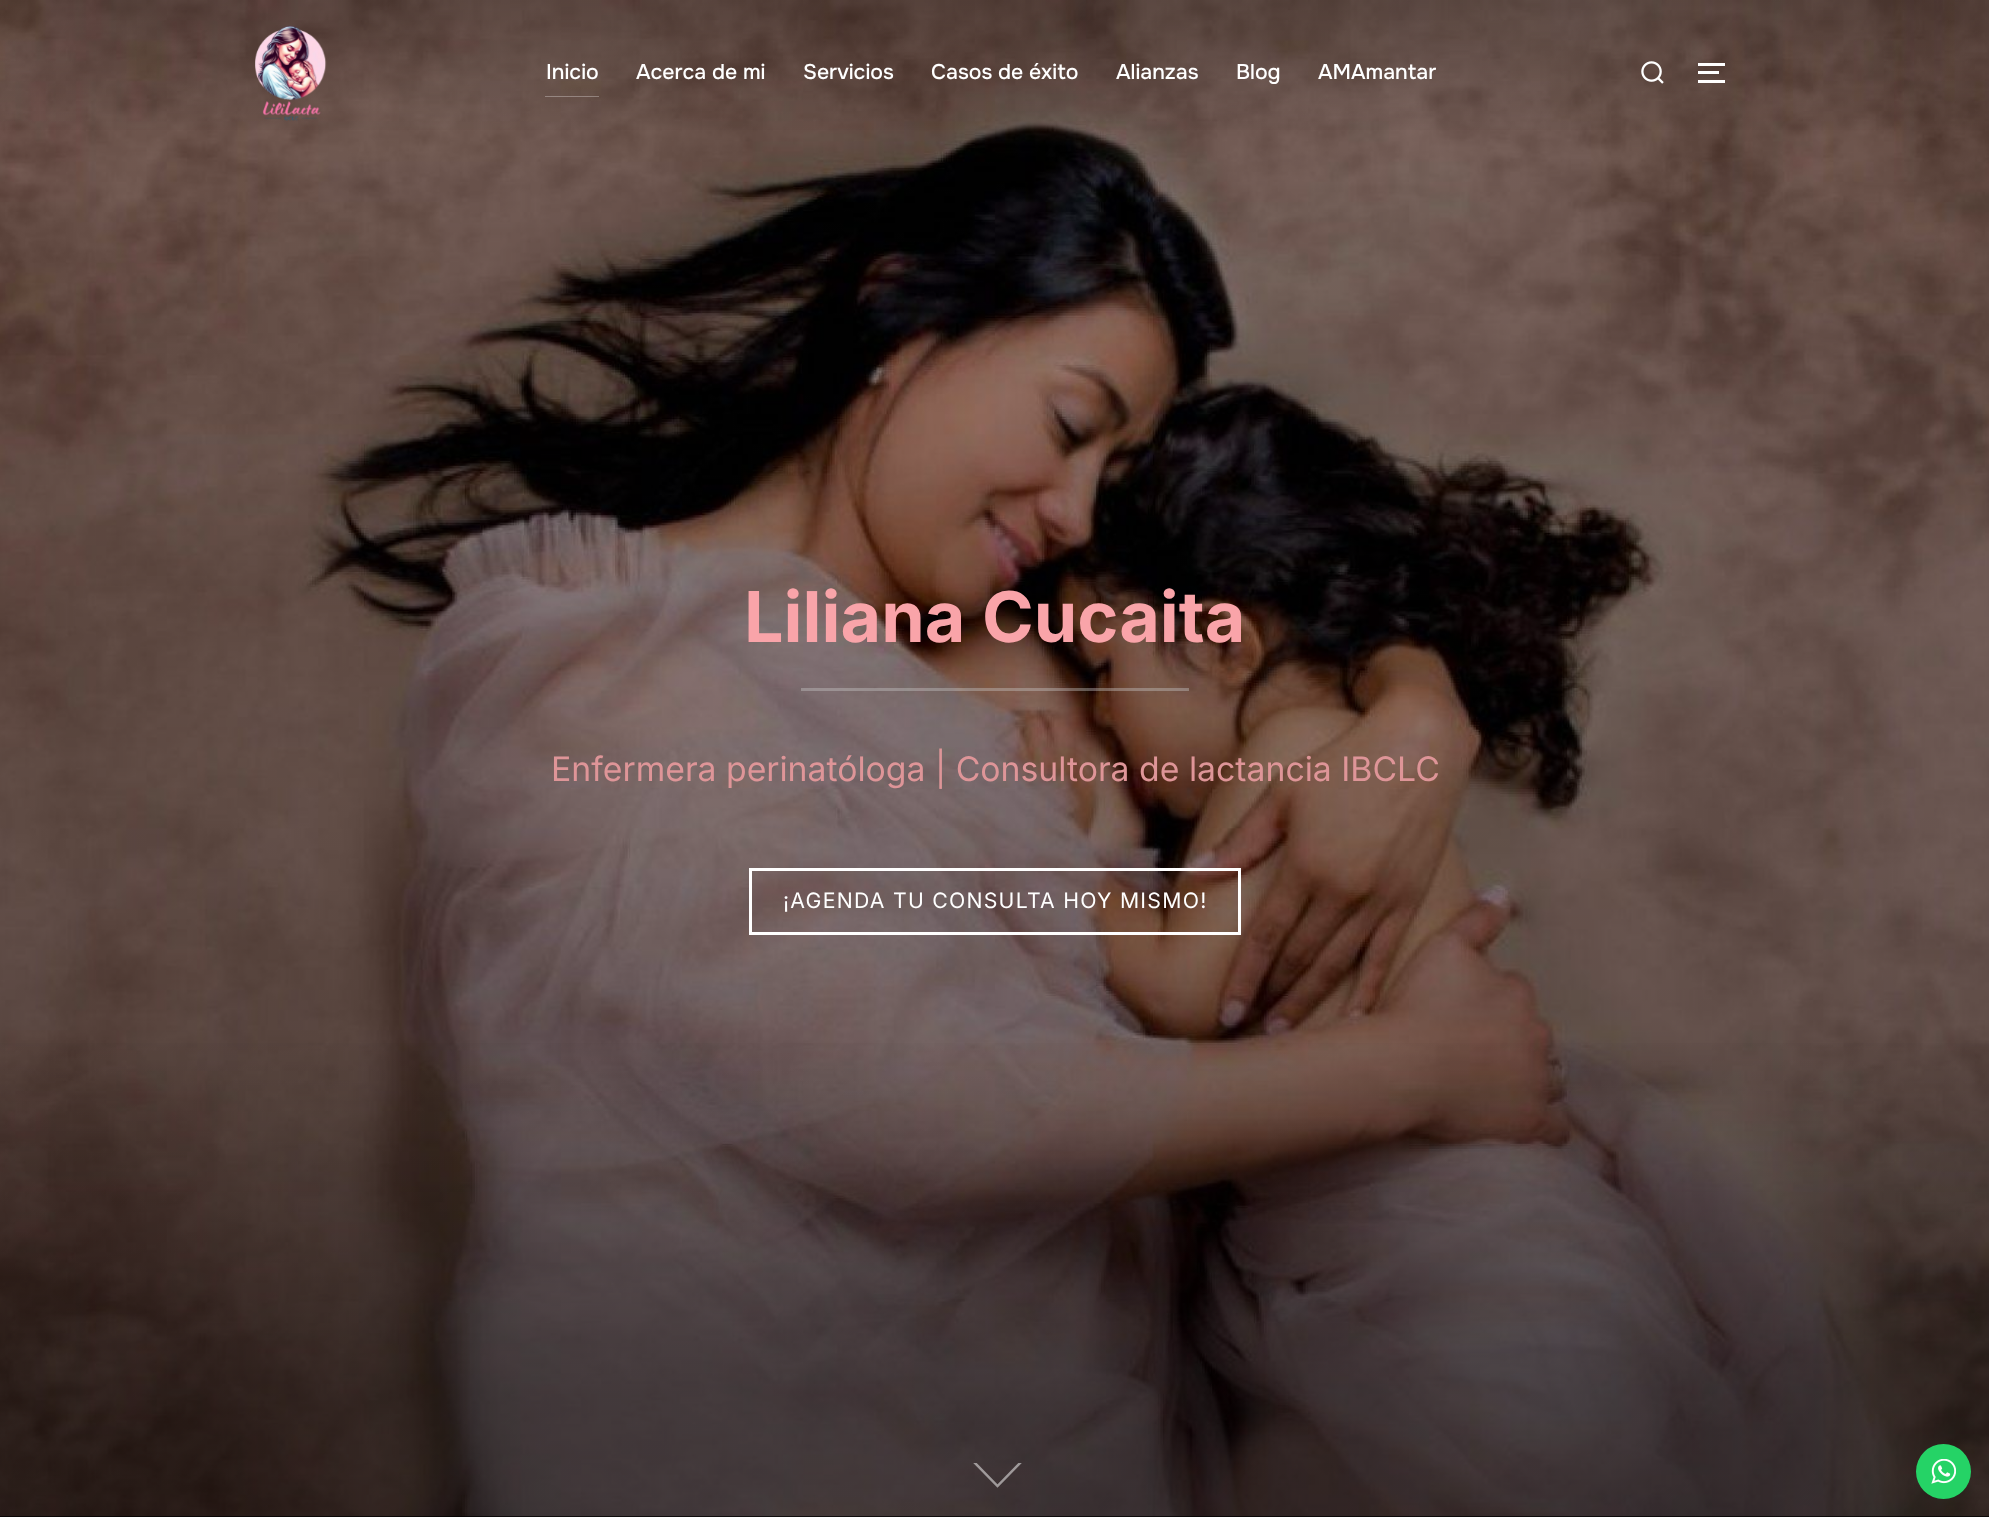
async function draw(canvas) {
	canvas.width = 1989;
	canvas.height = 1517;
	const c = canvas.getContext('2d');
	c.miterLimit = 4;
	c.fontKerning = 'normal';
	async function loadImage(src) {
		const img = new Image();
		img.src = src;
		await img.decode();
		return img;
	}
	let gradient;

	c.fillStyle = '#000';
	c.fillRect(0, 0, 1989, 1517);
	c.drawImage(await loadImage('img3.png'), 0, 0, 1989, 1517);
	gradient = c.createLinearGradient(995, 0, 995, 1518);
	gradient.addColorStop(0, '#0000004d');
	gradient.addColorStop(1, '#00000080');
	c.fillStyle = gradient;
	c.fillRect(0, 0, 1989, 1517);
	gradient = c.createLinearGradient(995, 0, 995, 145);
	gradient.addColorStop(0.01, '#00000033');
	gradient.addColorStop(1, '#00000000');
	c.fillStyle = gradient;
	c.fillRect(0, 0, 1989, 130);
	c.drawImage(await loadImage('img1.png'), 255, 25, 72, 96);
	c.fillStyle = '#ffffff4d';
	c.fillRect(545, 96, 54, 1);
	c.font = '500 21.25px Onest';
	c.fillStyle = '#fff';
	for (const [text, x, y] of [
		['Inicio', 546, 79],
		['Acerca de mi', 636, 79],
		['Servicios', 803, 79],
		['Casos de éxito', 931, 79],
		['Alianzas', 1116, 79],
		['Blog', 1236, 79],
		['AMAmantar', 1318, 79],
	]) {
		c.fillText(text, x, y);
	}
	c.drawImage(await loadImage('img2.png'), 1641, 61, 23, 23);
	for (const [x, y, w, h, color] of [
		[1698, 63, 27, 3, '#fff'],
		[1698, 71, 21, 3, '#fff'],
		[1698, 80, 27, 3, '#fff'],
	]) {
		c.fillStyle = color;
		c.fillRect(x, y, w, h);
	}
	gradient = c.createLinearGradient(995, 1016, 995, 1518);
	gradient.addColorStop(0, '#00000000');
	gradient.addColorStop(0.75, '#0000004d');
	gradient.addColorStop(1, '#0000004d');
	c.fillStyle = gradient;
	c.fillRect(0, 1043, 1989, 474);
	c.font = 'bold 70px Inter';
	c.fillStyle = '#f9a4a9';
	c.fillText('Liliana Cucaita', 744, 642);
	c.fillStyle = '#c9c9c966';
	c.fillRect(801, 688, 388, 3);
	c.font = '33.75px Inter';
	c.fillStyle = '#de9598';
	c.fillText('Enfermera perinatóloga | Consultora de lactancia IBCLC', 551, 781);
	c.strokeStyle = '#fff';
	c.lineWidth = 3;
	c.strokeRect(750.5, 869.5, 489, 64);
	c.letterSpacing = '1.25px';
	c.font = '21.25px Inter';
	c.fillStyle = '#fff';
	c.fillText('¡AGENDA TU CONSULTA HOY MISMO!', 783, 908);
	c.save();
	c.beginPath();
	c.rect(960, 1463, 70, 30);
	c.clip();
	c.beginPath();
	c.moveTo(997.5, 1436.5);
	c.lineTo(1022, 1461);
	c.lineTo(997.5, 1486);
	c.lineTo(973, 1461);
	c.closePath();
	c.strokeStyle = '#ffffff80';
	c.lineWidth = 2.5;
	c.stroke();
	c.restore();
	c.fillStyle = '#25d366';
	c.beginPath();
	c.arc(1943.5, 1471.5, 27.5, 0, 2 * Math.PI);
	c.fill();
	c.drawImage(await loadImage('img4.png'), 1931, 1459, 25, 25);
}

draw(document.querySelector('canvas'));
